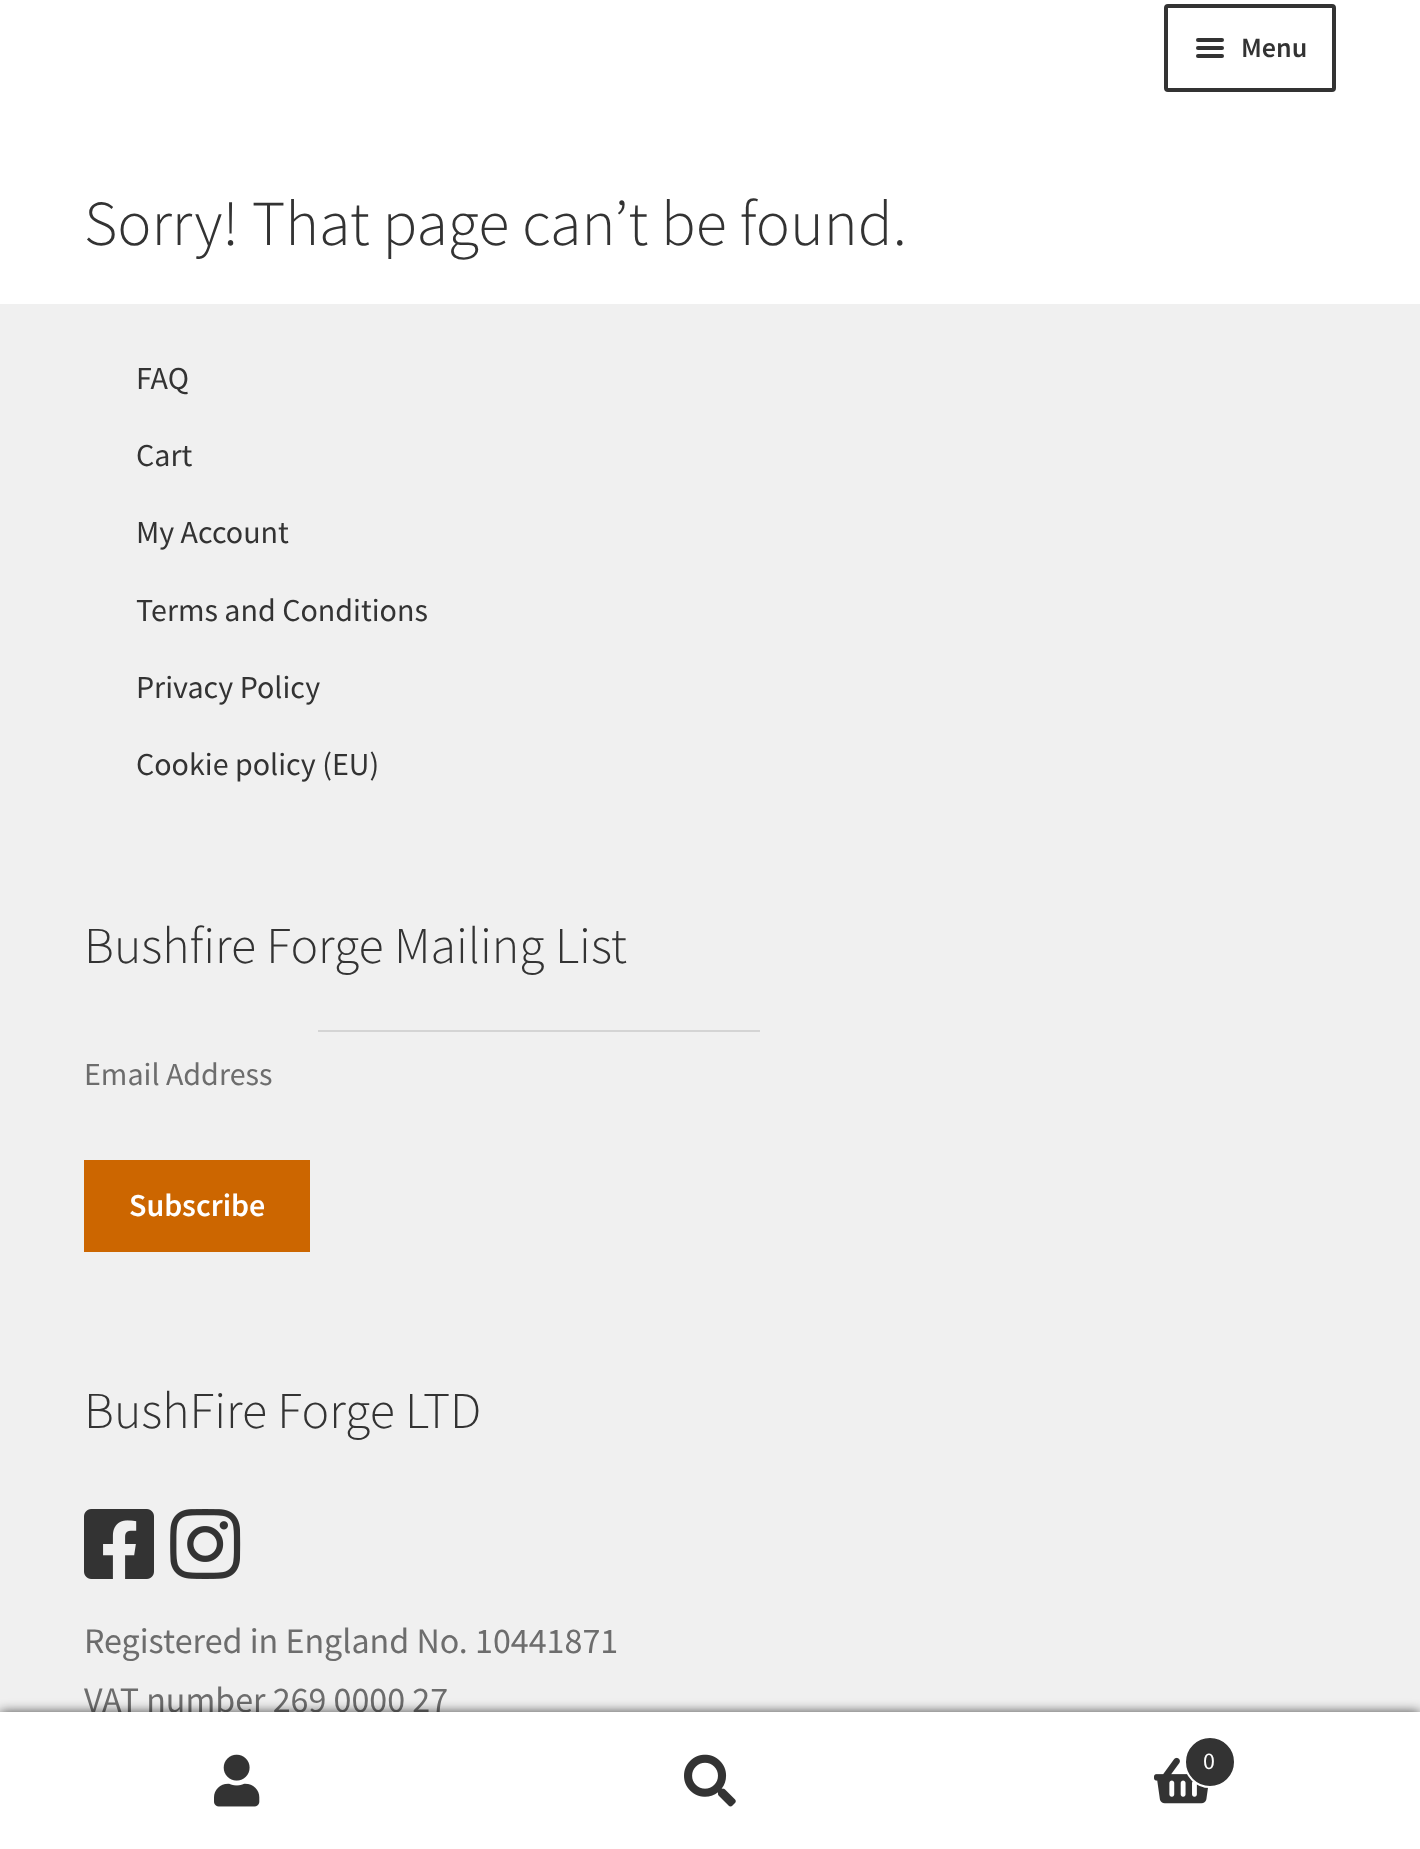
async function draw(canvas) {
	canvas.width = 1420;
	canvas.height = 1849;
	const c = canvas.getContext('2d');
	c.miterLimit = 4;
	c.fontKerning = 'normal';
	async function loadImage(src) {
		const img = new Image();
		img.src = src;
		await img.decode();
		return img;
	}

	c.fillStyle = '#fff';
	c.fillRect(0, 0, 1420, 1849);
	c.beginPath();
	c.roundRect(1166, 6, 168, 84, 2);
	c.strokeStyle = '#333';
	c.lineWidth = 4;
	c.stroke();
	c.fillStyle = '#333';
	c.beginPath();
	c.roundRect(1196, 38, 28, 4, 2);
	c.fill();
	c.beginPath();
	c.roundRect(1196, 46, 28, 4, 2);
	c.fill();
	c.font = '600 28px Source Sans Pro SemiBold';
	c.fillText('Menu', 1241, 57);
	c.beginPath();
	c.roundRect(1196, 54, 28, 4, 2);
	c.fill();
	c.font = '300 64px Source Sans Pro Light';
	c.fillText('Sorry! That page can’t be found.', 84, 245);
	c.fillStyle = '#f0f0f0';
	c.fillRect(0, 304, 1420, 1408);
	c.font = '32px Source Sans Pro';
	c.fillStyle = '#333';
	for (const [text, x, y] of [
		['FAQ', 136, 389],
		['Cart', 136, 466],
		['My Account', 136, 543],
		['Terms and Conditions', 136, 621],
		['Privacy Policy', 136, 698],
		['Cookie policy (EU)', 136, 775],
	]) {
		c.fillText(text, x, y);
	}
	c.font = '300 51.75px Source Sans Pro Light';
	c.fillText('Bushfire Forge Mailing List', 84, 963);
	c.fillStyle = '#d4d4d4';
	c.fillRect(318, 1030, 442, 2);
	c.font = '32px Source Sans Pro';
	c.fillStyle = '#6d6d6d';
	c.fillText('Email Address', 84, 1085);
	c.fillStyle = '#c60';
	c.fillRect(84, 1160, 226, 92);
	c.font = '600 32px Source Sans Pro SemiBold';
	c.fillStyle = '#fff';
	c.fillText('Subscribe', 129, 1216);
	c.font = '300 51.75px Source Sans Pro Light';
	c.fillStyle = '#333';
	c.fillText('BushFire Forge LTD', 84, 1428);
	c.drawImage(await loadImage('img1.png'), 84, 1509, 70, 70);
	c.drawImage(await loadImage('img2.png'), 170, 1509, 71, 70);
	c.font = '36px Source Sans Pro';
	c.fillStyle = '#6d6d6d';
	c.fillText('Registered in England No. 10441871', 84, 1653);
	c.fillText('VAT number 269 0000 27', 84, 1712);
	c.fillStyle = '#000000b3';
	c.filter = 'blur(6px)';
	c.beginPath();
	c.rect(0, 1712, 1420, 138);
	c.fill();
	c.filter = 'none';
	c.fillStyle = '#fff';
	c.fillRect(0, 1712, 1420, 2);
	c.fillRect(0, 1714, 1420, 135);
	c.drawImage(await loadImage('img3.png'), 214, 1754, 46, 53);
	c.drawImage(await loadImage('img4.png'), 684, 1754, 52, 53);
	c.drawImage(await loadImage('img5.png'), 1154, 1757, 55, 47);
	c.fillStyle = '#333';
	c.beginPath();
	c.arc(1210, 1762, 25, 0, 2 * Math.PI);
	c.fill();
	c.strokeStyle = '#fff';
	c.lineWidth = 2;
	c.stroke();
	c.font = '24px Source Sans Pro';
	c.fillStyle = '#fff';
	c.fillText('0', 1203, 1769);
}

draw(document.querySelector('canvas'));
